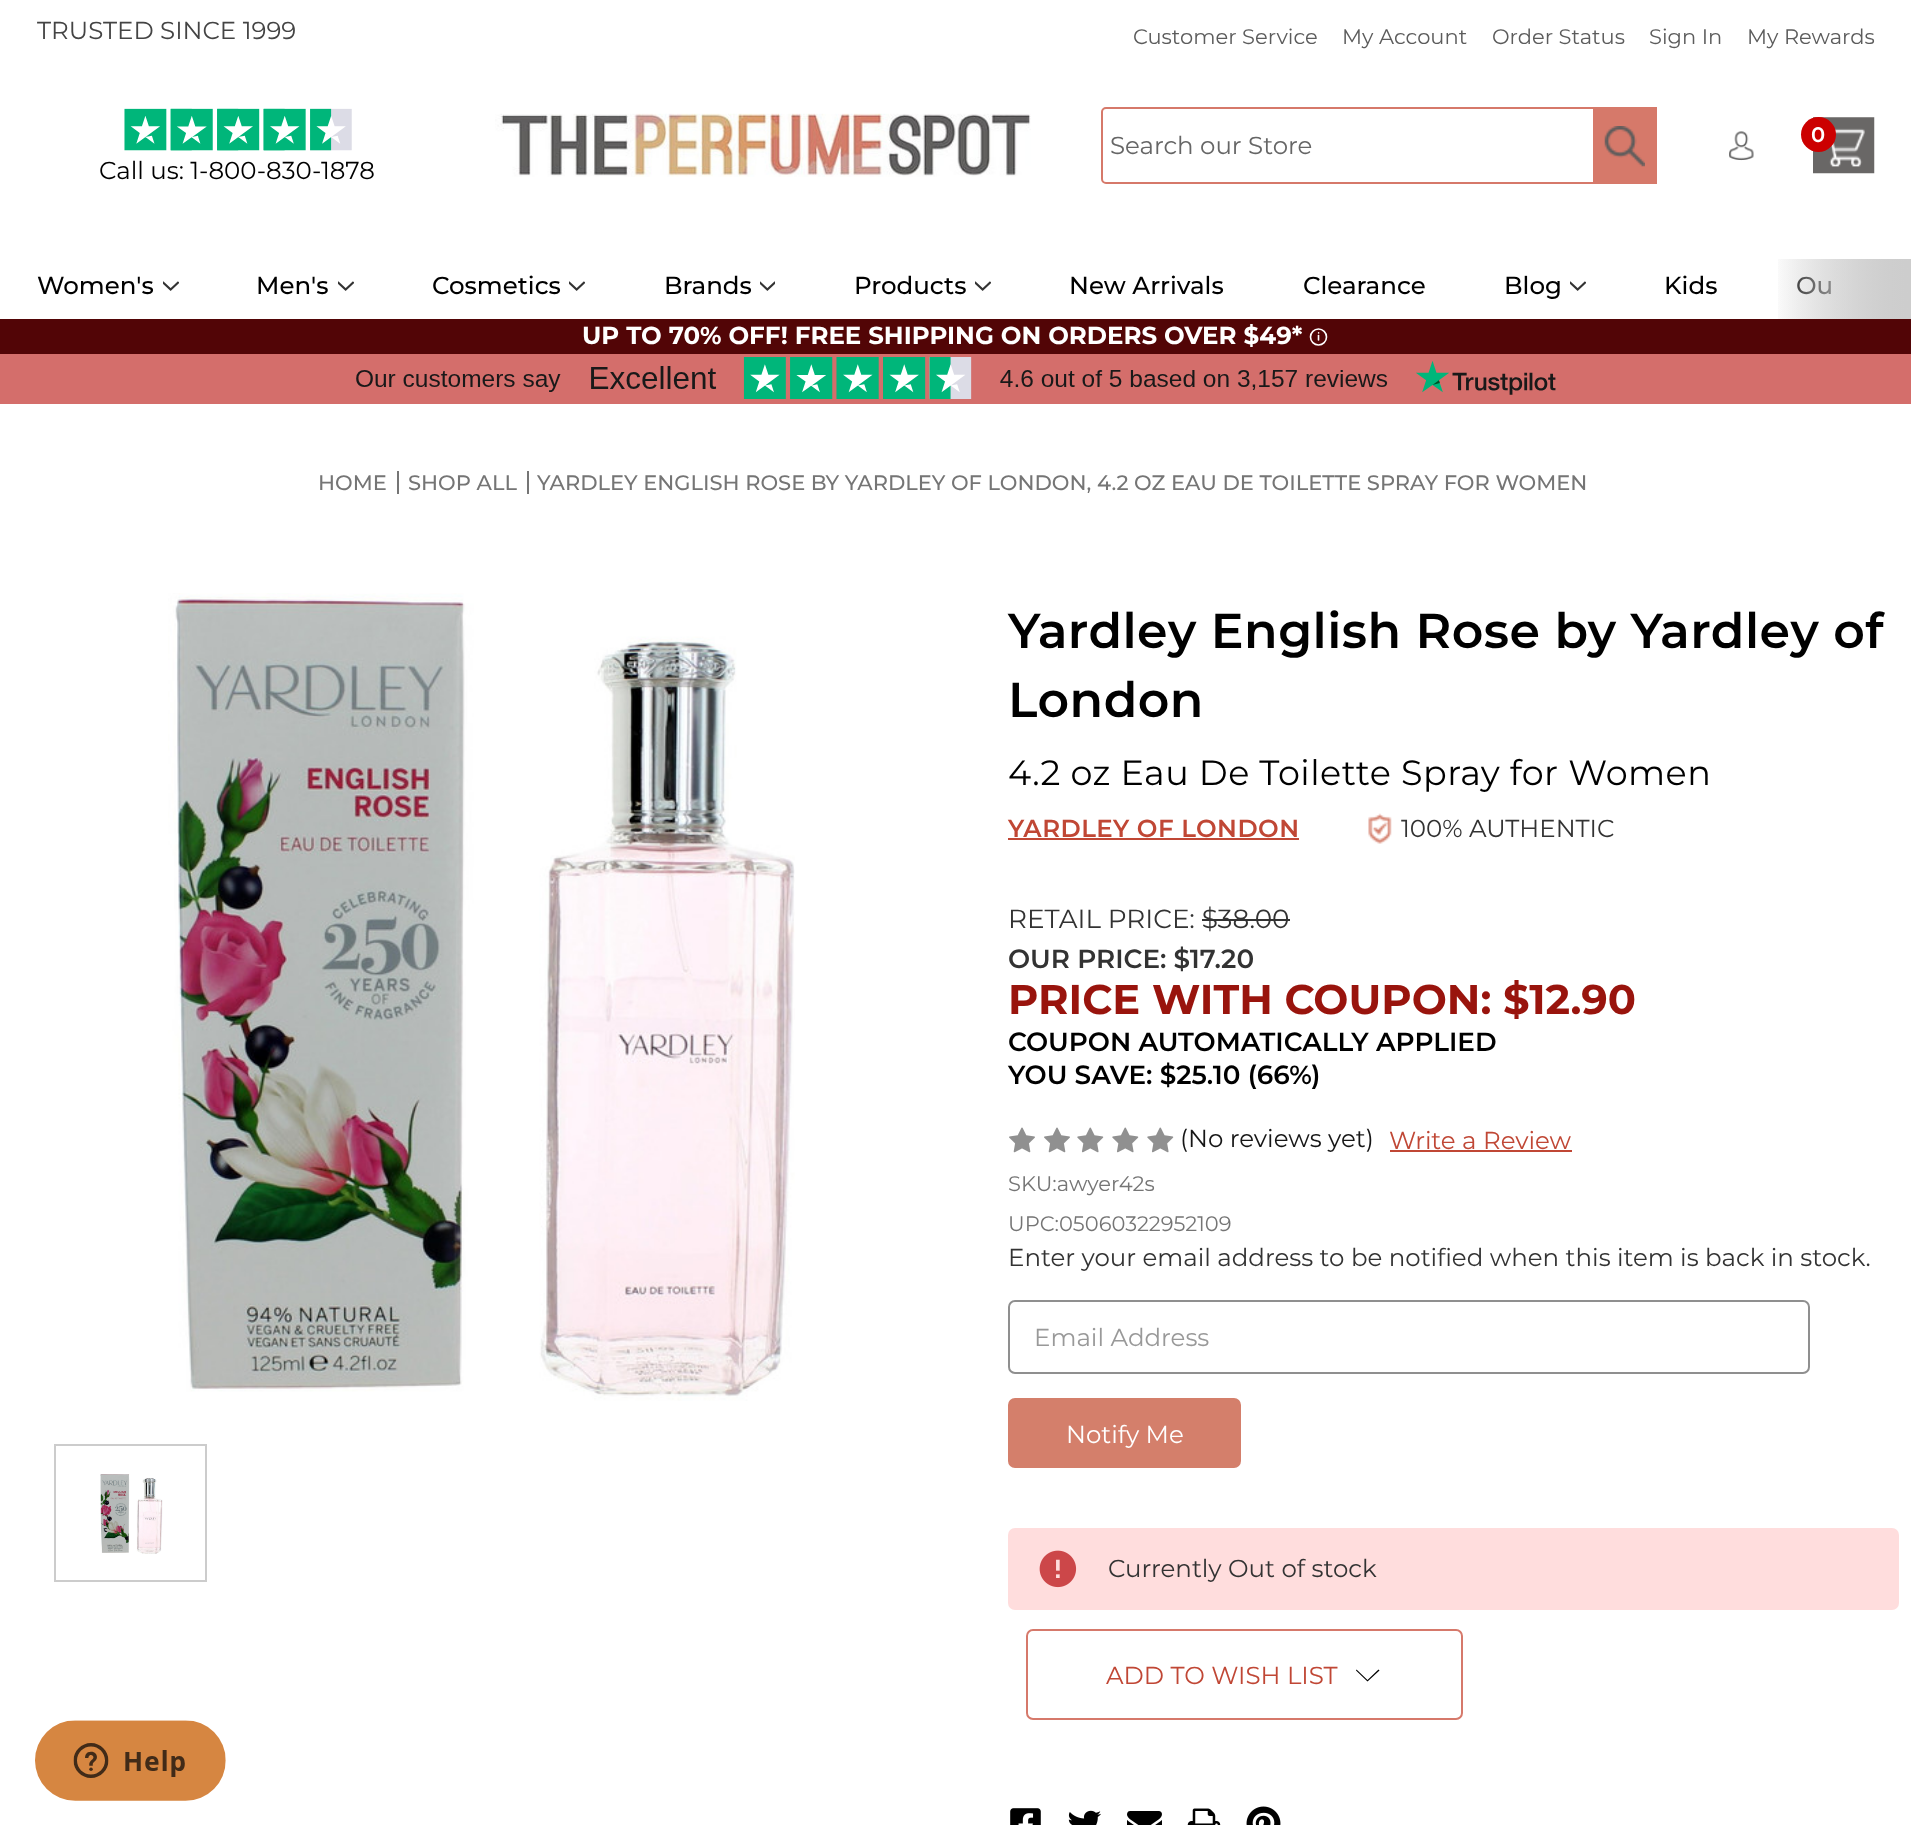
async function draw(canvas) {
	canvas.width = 1911;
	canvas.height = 1825;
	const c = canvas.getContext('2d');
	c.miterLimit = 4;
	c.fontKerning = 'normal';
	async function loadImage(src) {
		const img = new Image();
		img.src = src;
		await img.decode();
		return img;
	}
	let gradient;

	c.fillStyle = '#fff';
	c.fillRect(0, 0, 1911, 1825);
	c.font = '100 24.5px Montserrat';
	c.fillStyle = '#444';
	c.fillText('TRUSTED SINCE 1999', 37, 39);
	c.font = '100 21px Montserrat';
	c.fillStyle = '#5c5c5c';
	for (const [text, x, y] of [
		['Customer Service', 1133, 44],
		['My Account', 1342, 44],
		['Order Status', 1492, 44],
		['Sign In', 1649, 44],
		['My Rewards', 1747, 44],
	]) {
		c.fillText(text, x, y);
	}
	c.drawImage(await loadImage('img1.png'), 495, 113, 536, 64);
	c.beginPath();
	c.roundRect(1102, 108, 554, 75, 4);
	c.strokeStyle = '#d6796a';
	c.lineWidth = 2;
	c.stroke();
	c.font = '100 24.5px Montserrat';
	c.fillStyle = '#666';
	c.fillText('Search our Store', 1110, 154);
	c.fillStyle = '#d6796a';
	c.fillRect(1593, 107, 64, 77);
	c.drawImage(await loadImage('img2.png'), 1604, 126, 41, 41);
	c.drawImage(await loadImage('img3.png'), 1729, 131, 25, 30);
	c.drawImage(await loadImage('img4.png'), 1813, 117, 62, 57);
	c.fillStyle = '#c00';
	c.beginPath();
	c.arc(1818.5, 134.5, 17.5, 0, 2 * Math.PI);
	c.fill();
	c.font = '600 21px Montserrat';
	c.fillStyle = '#fff';
	c.fillText('0', 1811, 142);
	c.drawImage(await loadImage('img5.png'), 124, 108, 228, 43);
	c.font = '100 24.5px Montserrat';
	c.fillStyle = '#000';
	c.fillText('Call us: 1-800-830-1878', 99, 179);
	c.font = '500 24.5px Montserrat';
	c.fillText('Women\'s', 37, 294);
	c.drawImage(await loadImage('img6.png'), 163, 281, 16, 10);
	c.fillText('Men\'s', 256, 294);
	c.drawImage(await loadImage('img6.png'), 338, 281, 16, 10);
	c.fillText('Cosmetics', 432, 294);
	c.drawImage(await loadImage('img6.png'), 569, 281, 16, 10);
	c.fillText('Brands', 664, 294);
	c.drawImage(await loadImage('img7.png'), 760, 281, 15, 10);
	c.fillText('Products', 854, 294);
	c.drawImage(await loadImage('img6.png'), 975, 281, 16, 10);
	for (const [text, x, y] of [
		['New Arrivals', 1069, 294],
		['Clearance', 1303, 294],
		['Blog', 1504, 294],
	]) {
		c.fillText(text, x, y);
	}
	c.drawImage(await loadImage('img6.png'), 1570, 281, 16, 10);
	c.fillText('Kids', 1664, 294);
	c.fillText('Ou', 1796, 294);
	gradient = c.createLinearGradient(1771, 289, 1911, 289);
	gradient.addColorStop(0, '#cdcdcd00');
	gradient.addColorStop(1, '#cdcdcd');
	c.fillStyle = gradient;
	c.fillRect(1778, 259, 132, 60);
	c.fillRect(1778, 259, 133, 60);
	c.fillStyle = '#520506';
	c.fillRect(0, 319, 1911, 35);
	c.font = 'bold 24.5px Montserrat';
	c.fillStyle = '#fff';
	c.fillText('UP TO 70% OFF! FREE SHIPPING ON ORDERS OVER $49*', 582, 344);
	c.beginPath();
	c.arc(1318.5, 337, 8, 0, 2 * Math.PI);
	c.strokeStyle = '#fff';
	c.lineWidth = 1.6;
	c.stroke();
	c.beginPath();
	c.arc(1318.6, 332.9, 0.8, 0, 2 * Math.PI);
	c.fill();
	c.beginPath();
	c.moveTo(1318.5, 335.5);
	c.lineTo(1318.5, 340);
	c.lineCap = 'round';
	c.stroke();
	c.fillStyle = '#d46e6b';
	c.fillRect(0, 354, 1911, 50);
	c.drawImage(await loadImage('img8.png'), 356, 357, 1200, 42);
	c.font = '500 21px Montserrat';
	c.fillStyle = '#757575';
	c.fillText('HOME', 318, 490);
	c.fillRect(397, 471, 2, 23);
	c.fillText('SHOP ALL', 408, 490);
	c.fillRect(527, 471, 2, 23);
	c.fillText('YARDLEY ENGLISH ROSE BY YARDLEY OF LONDON, 4.2 OZ EAU DE TOILETTE SPRAY FOR WOMEN', 537, 490);
	c.drawImage(await loadImage('img9.png'), 168, 593, 627, 808);
	c.strokeStyle = '#ccc';
	c.lineWidth = 2;
	c.strokeRect(55, 1445, 151, 136);
	c.drawImage(await loadImage('img10.png'), 100, 1474, 63, 80);
	c.letterSpacing = '0.45px';
	c.font = '600 49px Montserrat';
	c.fillStyle = '#000';
	c.fillText('Yardley English Rose by Yardley of', 1008, 648);
	c.fillText('London', 1008, 717);
	c.font = '100 35px Montserrat';
	c.fillText('4.2 oz Eau De Toilette Spray for Women', 1008, 785);
	c.font = '600 24.5px Montserrat';
	c.fillStyle = '#c04735';
	c.fillText('YARDLEY OF LONDON', 1008, 837);
	c.fillRect(1008, 838, 291, 2);
	c.drawImage(await loadImage('img11.png'), 1368, 813, 24, 31);
	c.letterSpacing = '0px';
	c.font = '100 24.5px Montserrat';
	c.fillStyle = '#333';
	c.fillText('100% AUTHENTIC', 1401, 837);
	c.font = '100 26.25px Montserrat';
	c.fillText('RETAIL PRICE: $38.00', 1008, 928);
	c.fillRect(1202, 919, 88, 2);
	c.font = '600 26.25px Montserrat';
	c.fillText('OUR PRICE: $17.20', 1008, 968);
	c.font = 'bold 41.6px Montserrat';
	c.fillStyle = '#99140d';
	c.fillText('PRICE WITH COUPON: $12.90', 1008, 1014);
	c.font = '600 26.25px Montserrat';
	c.fillStyle = '#000';
	c.fillText('COUPON AUTOMATICALLY APPLIED', 1008, 1051);
	c.fillText('YOU SAVE: $25.10 (66%)', 1008, 1084);
	c.drawImage(await loadImage('img12.png'), 1009, 1127, 26, 26);
	c.drawImage(await loadImage('img12.png'), 1044, 1127, 26, 26);
	c.drawImage(await loadImage('img13.png'), 1077, 1127, 27, 26);
	c.drawImage(await loadImage('img13.png'), 1112, 1127, 27, 26);
	c.drawImage(await loadImage('img13.png'), 1147, 1127, 27, 26);
	c.font = '100 24.5px Montserrat';
	c.fillStyle = '#161616';
	c.fillText('(No reviews yet)', 1180, 1147);
	c.fillStyle = '#c04735';
	c.fillText('Write a Review', 1389, 1149);
	c.fillRect(1390, 1150, 182, 2);
	c.font = '100 21px Montserrat';
	c.fillStyle = '#757575';
	c.fillText('SKU:awyer42s', 1008, 1191);
	c.fillText('UPC:05060322952109', 1008, 1231);
	c.font = '100 24.5px Montserrat';
	c.fillStyle = '#333';
	c.fillText('Enter your email address to be notified when this item is back in stock.', 1008, 1266);
	c.beginPath();
	c.roundRect(1009, 1301, 800, 72, 6);
	c.strokeStyle = '#8f8f8f';
	c.stroke();
	c.fillStyle = '#999';
	c.fillText('Email Address', 1034, 1346);
	c.fillStyle = '#d47f6b';
	c.beginPath();
	c.roundRect(1009, 1399, 231, 68, 6);
	c.fill();
	c.strokeStyle = '#d47f6b';
	c.stroke();
	c.fillStyle = '#fff';
	c.fillText('Notify Me', 1066, 1443);
	c.fillStyle = '#fdd';
	c.beginPath();
	c.roundRect(1008, 1528, 891, 82, 7);
	c.fill();
	c.drawImage(await loadImage('img14.png'), 1039, 1550, 38, 38);
	c.fillStyle = '#333';
	c.fillText('Currently Out of stock', 1108, 1577);
	c.beginPath();
	c.roundRect(1027, 1630, 435, 89, 6);
	c.strokeStyle = '#d6796b';
	c.stroke();
	c.fillStyle = '#c04735';
	c.fillText('ADD TO WISH LIST', 1106, 1684);
	c.fillStyle = '#000';
	c.beginPath();
	c.moveTo(1367.5, 1680);
	c.lineTo(1378.5, 1669.5);
	c.lineTo(1379.5, 1670.5);
	c.lineTo(1367.5, 1681.5);
	c.lineTo(1356, 1670.5);
	c.lineTo(1356.5, 1669.5);
	c.closePath();
	c.fill('evenodd');
	c.drawImage(await loadImage('img15.png'), 1010, 1808, 31, 17);
	c.drawImage(await loadImage('img16.png'), 1068, 1810, 33, 15);
	c.drawImage(await loadImage('img17.png'), 1127, 1811, 35, 14);
	c.drawImage(await loadImage('img18.png'), 1187, 1808, 34, 17);
	c.drawImage(await loadImage('img19.png'), 1246, 1806, 35, 19);
	c.drawImage(await loadImage('img20.png'), 35, 1720, 191, 81);
}

draw(document.querySelector('canvas'));
